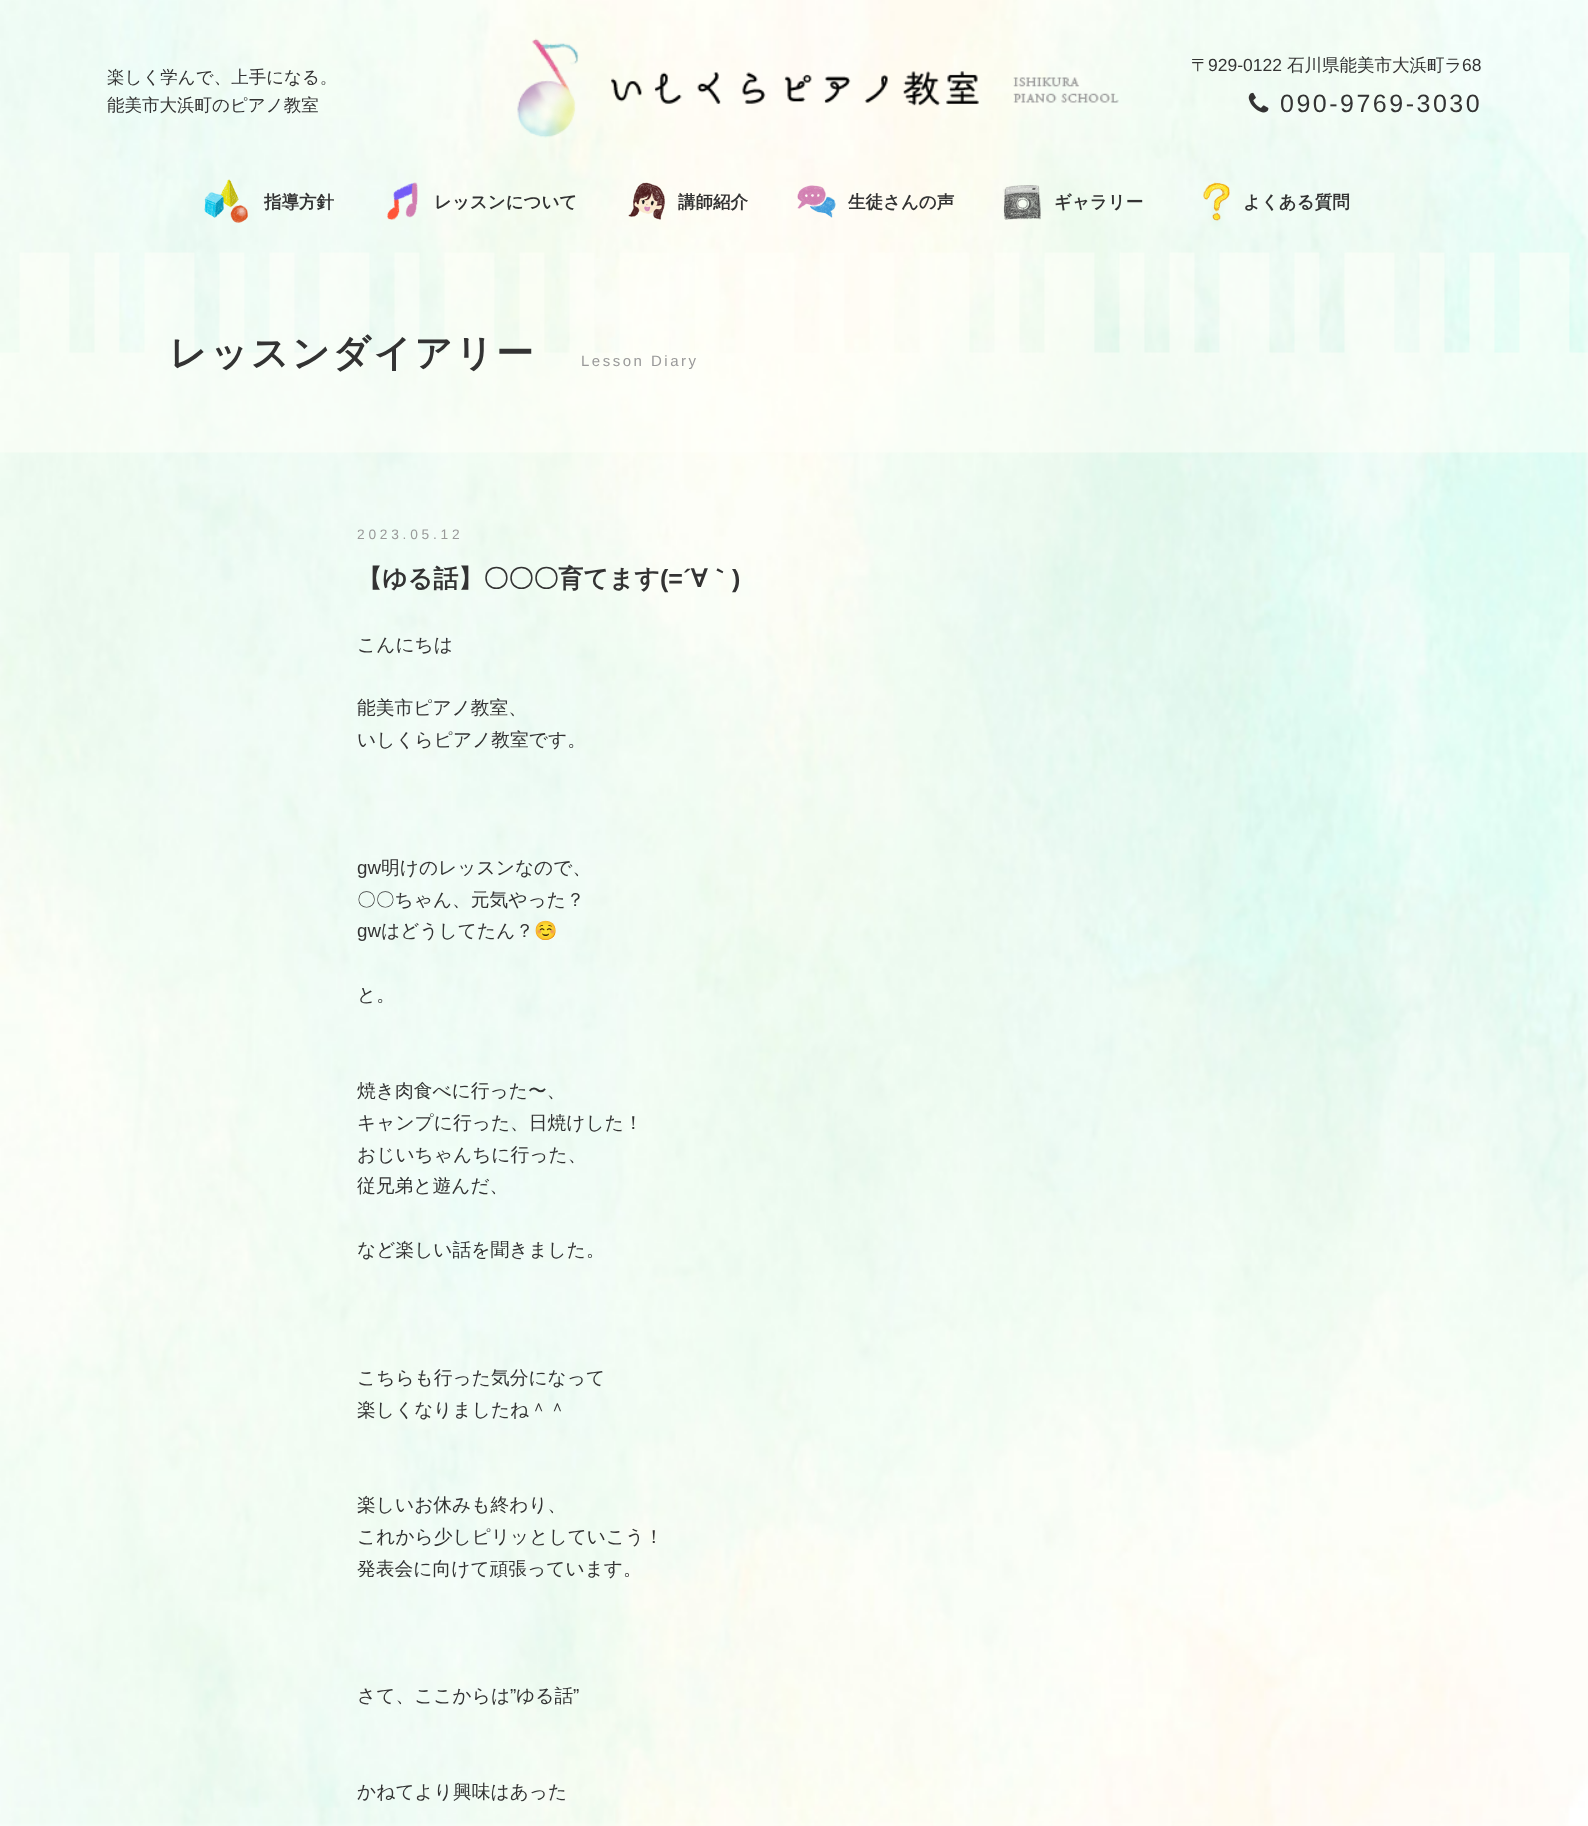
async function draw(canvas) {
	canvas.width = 1588;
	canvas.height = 1826;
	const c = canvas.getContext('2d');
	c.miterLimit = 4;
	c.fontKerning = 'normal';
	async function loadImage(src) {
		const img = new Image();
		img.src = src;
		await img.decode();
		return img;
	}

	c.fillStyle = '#fff';
	c.fillRect(0, 0, 1588, 1826);
	c.drawImage(await loadImage('img1.png'), 0, 1823, 1588, 3);
	c.drawImage(await loadImage('img2.png'), 0, 0, 1588, 1826);
	c.font = '500 17.5px WenQuanYi Zen Hei';
	c.fillStyle = '#333';
	c.fillText('楽しく学んで、上手になる。', 107, 83);
	c.fillText('能美市大浜町のピアノ教室', 107, 111);
	c.drawImage(await loadImage('img3.png'), 517, 38, 602, 100);
	c.fillText('〒', 1191, 71);
	c.font = '17.5px Liberation Sans';
	c.fillText('929-0122', 1208, 71);
	c.font = '500 17.5px WenQuanYi Zen Hei';
	c.fillText('石川県能美市大浜町ラ', 1287, 71);
	c.font = '17.5px Liberation Sans';
	c.fillText('68', 1462, 71);
	c.drawImage(await loadImage('img4.png'), 1248, 92, 21, 21);
	c.letterSpacing = '2.5px';
	c.font = '25px Liberation Sans';
	c.fillText('090-9769-3030', 1280, 112);
	c.drawImage(await loadImage('img5.png'), 204, 179, 44, 44);
	c.letterSpacing = '0px';
	c.font = 'bold 17.5px WenQuanYi Zen Hei';
	c.fillText('指導方針', 264, 208);
	c.drawImage(await loadImage('img6.png'), 387, 182, 31, 38);
	c.fillText('レッスンについて', 434, 208);
	c.drawImage(await loadImage('img7.png'), 628, 182, 37, 38);
	c.fillText('講師紹介', 678, 208);
	c.drawImage(await loadImage('img8.png'), 797, 185, 39, 33);
	c.fillText('生徒さんの声', 848, 208);
	c.drawImage(await loadImage('img9.png'), 1003, 185, 38, 35);
	c.fillText('ギャラリー', 1054, 208);
	c.drawImage(await loadImage('img10.png'), 1203, 182, 27, 39);
	c.fillText('よくある質問', 1243, 208);
	c.drawImage(await loadImage('img11.png'), 0, 252, 1588, 201);
	c.letterSpacing = '2.5px';
	c.font = 'bold 37.5px WenQuanYi Zen Hei';
	c.fillText('レッスンダイアリー', 169, 366);
	c.font = '15px Liberation Sans';
	c.fillStyle = '#999';
	c.fillText('Lesson Diary', 581, 366);
	c.letterSpacing = '3.75px';
	c.font = '13.75px Liberation Sans';
	c.fillText('2023.05.12', 357, 539);
	c.letterSpacing = '0px';
	c.font = 'bold 25px WenQuanYi Zen Hei';
	c.fillStyle = '#333';
	c.fillText('【ゆる話】〇〇〇育てます', 357, 587);
	c.font = 'bold 25px Liberation Sans';
	c.fillText('(=´', 660, 587);
	c.font = 'bold 25px WenQuanYi Zen Hei';
	c.fillText('∀｀', 691, 587);
	c.font = 'bold 25px Liberation Sans';
	c.fillText(')', 732, 587);
	c.font = '500 18.75px WenQuanYi Zen Hei';
	for (const [text, x, y] of [
		['こんにちは', 357, 651],
		['能美市ピアノ教室、', 357, 714],
		['いしくらピアノ教室です。', 357, 746],
	]) {
		c.fillText(text, x, y);
	}
	c.font = '18.75px Liberation Sans';
	c.fillText('gw', 357, 874);
	c.font = '500 18.75px WenQuanYi Zen Hei';
	c.fillText('明けのレッスンなので、', 381, 874);
	c.fillText('〇〇ちゃん、元気やった？', 357, 906);
	c.font = '18.75px Liberation Sans';
	c.fillText('gw', 357, 937);
	c.font = '500 18.75px WenQuanYi Zen Hei';
	c.fillText('はどうしてたん？', 381, 937);
	c.font = '18.75px Noto Color Emoji';
	c.fillText('☺️', 534, 937);
	c.font = '500 18.75px WenQuanYi Zen Hei';
	for (const [text, x, y] of [
		['と。', 357, 1001],
		['焼き肉食べに行った〜、', 357, 1097],
		['キャンプに行った、日焼けした！', 357, 1129],
		['おじいちゃんちに行った、', 357, 1161],
		['従兄弟と遊んだ、', 357, 1192],
		['など楽しい話を聞きました。', 357, 1256],
		['こちらも行った気分になって', 357, 1384],
		['楽しくなりましたね＾＾', 357, 1416],
		['楽しいお休みも終わり、', 357, 1511],
		['これから少しピリッとしていこう！', 357, 1543],
		['発表会に向けて頑張っています。', 357, 1575],
		['さて、ここからは', 357, 1702],
	]) {
		c.fillText(text, x, y);
	}
	c.font = '18.75px Liberation Sans';
	c.fillText('”', 510, 1702);
	c.font = '500 18.75px WenQuanYi Zen Hei';
	c.fillText('ゆる話', 516, 1702);
	c.font = '18.75px Liberation Sans';
	c.fillText('”', 573, 1702);
	c.font = '500 18.75px WenQuanYi Zen Hei';
	c.fillText('かねてより興味はあった', 357, 1798);
}

draw(document.querySelector('canvas'));
